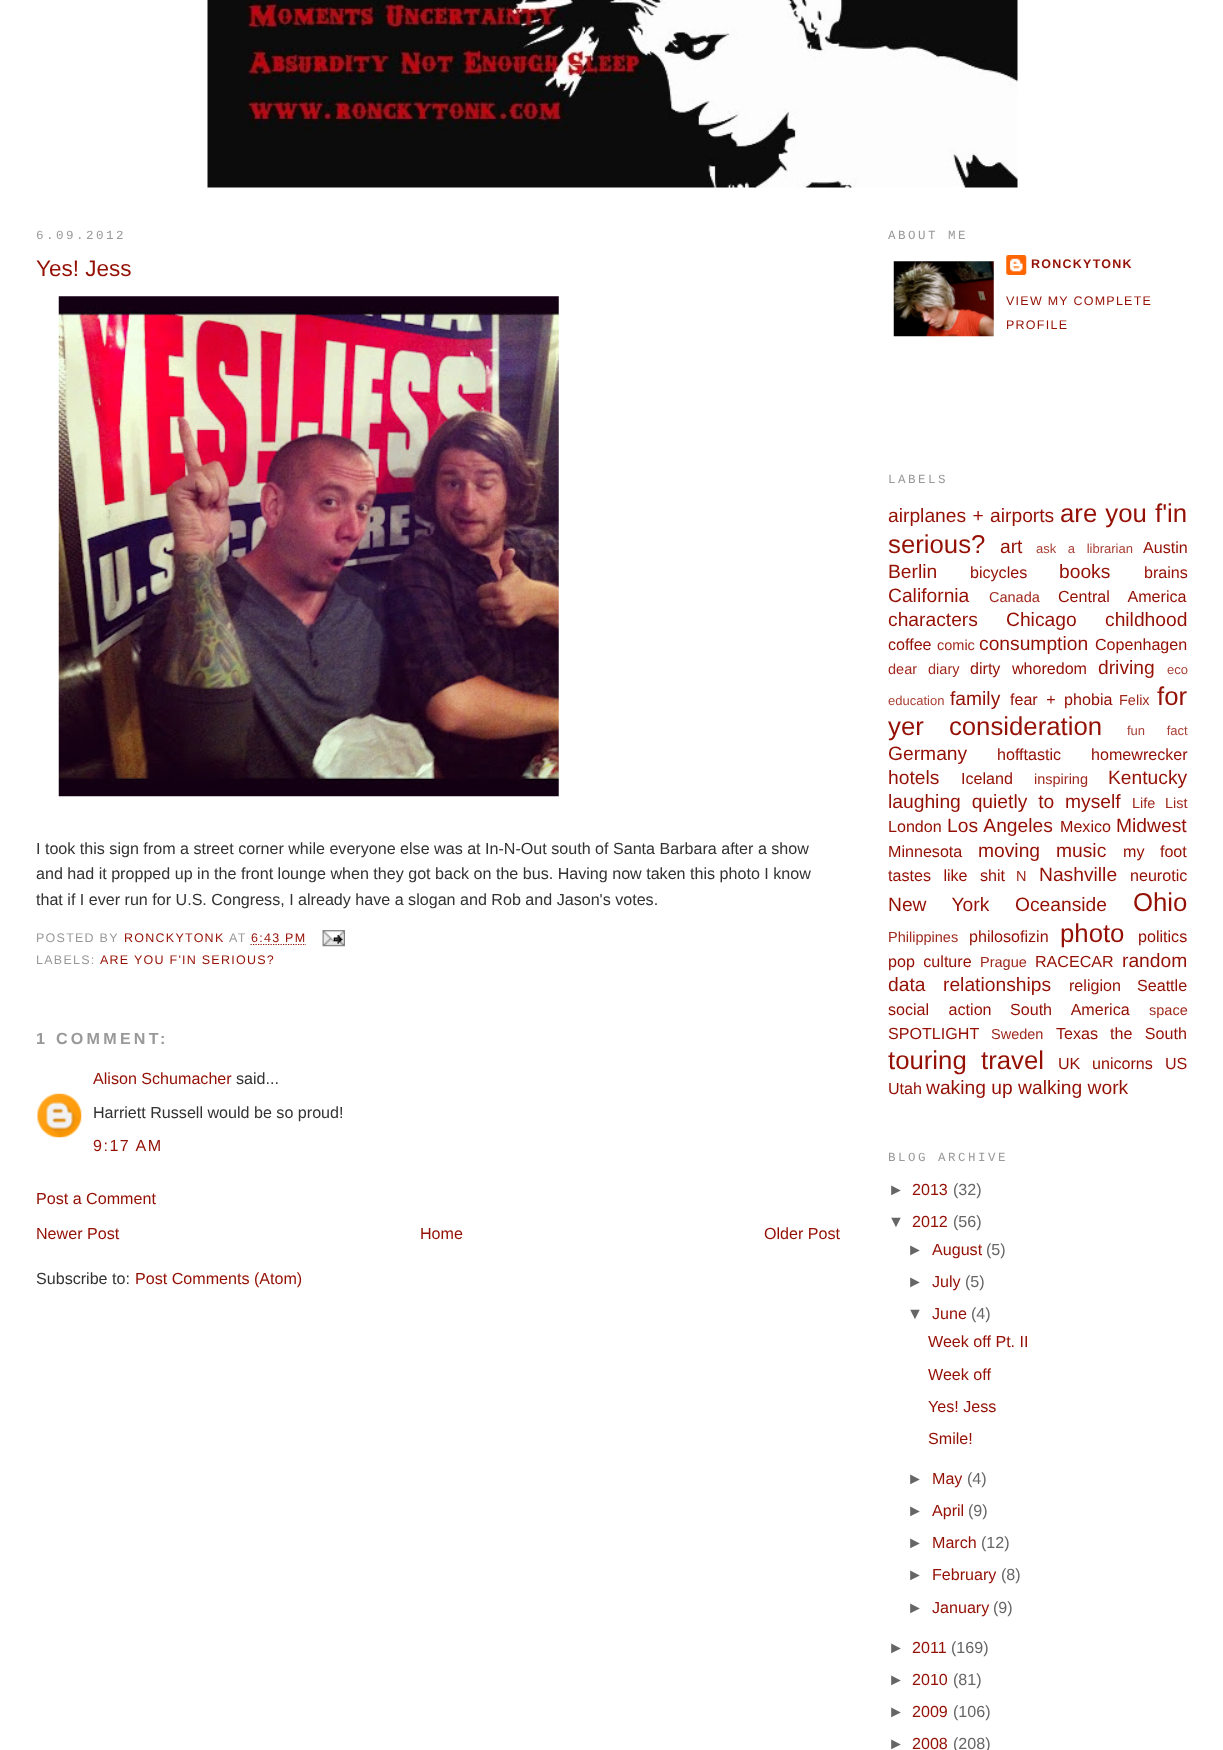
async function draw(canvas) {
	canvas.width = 1223;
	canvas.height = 1750;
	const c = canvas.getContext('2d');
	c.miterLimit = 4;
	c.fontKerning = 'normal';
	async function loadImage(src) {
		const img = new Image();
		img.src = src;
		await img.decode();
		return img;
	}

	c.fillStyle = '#fff';
	c.fillRect(0, 0, 1223, 1750);
	c.drawImage(await loadImage('img1.png'), 207, 0, 811, 188);
	c.letterSpacing = '2.5px';
	c.font = '12.5px Liberation Mono';
	c.fillStyle = '#999';
	c.fillText('6.09.2012', 36, 239);
	c.letterSpacing = '0px';
	c.font = '22.5px Liberation Sans';
	c.fillStyle = '#940f04';
	c.fillText('Yes! Jess', 36, 276);
	c.drawImage(await loadImage('img2.png'), 58, 296, 501, 501);
	c.font = '16.1px Liberation Sans';
	c.fillStyle = '#333';
	for (const [text, x, y] of [
		['I took this sign from a street corner while everyone else was at In-N-Out south of Santa Barbara after a show', 36, 854],
		['and had it propped up in the front lounge when they got back on the bus. Having now taken this photo I know', 36, 879],
		['that if I ever run for U.S. Congress, I already have a slogan and Rob and Jason\'s votes.', 36, 905],
	]) {
		c.fillText(text, x, y);
	}
	c.letterSpacing = '1.25px';
	c.font = '12.5px Liberation Sans';
	c.fillStyle = '#999';
	c.fillText('POSTED BY', 36, 942);
	c.fillStyle = '#940f04';
	c.fillText('RONCKYTONK', 124, 942);
	c.fillStyle = '#999';
	c.fillText('AT', 229, 942);
	c.fillStyle = '#940f04';
	c.fillText('6:43 PM', 251, 942);
	c.beginPath();
	c.moveTo(250.5, 944.5);
	c.lineTo(306, 944.5);
	c.strokeStyle = '#940f04';
	c.lineWidth = 1.2;
	c.setLineDash([1.25, 1.25]);
	c.stroke();
	c.drawImage(await loadImage('img3.png'), 322, 930, 23, 17);
	c.fillStyle = '#999';
	c.fillText('LABELS:', 36, 964);
	c.fillStyle = '#940f04';
	c.fillText('ARE YOU F\'IN SERIOUS?', 100, 964);
	c.letterSpacing = '3.25px';
	c.font = 'bold 16.1px Liberation Sans';
	c.fillStyle = '#999';
	c.fillText('1 COMMENT:', 36, 1044);
	c.letterSpacing = '0px';
	c.font = '16.1px Liberation Sans';
	c.fillStyle = '#940f04';
	c.fillText('Alison Schumacher', 93, 1084);
	c.fillStyle = '#333';
	c.fillText('said...', 236, 1084);
	c.drawImage(await loadImage('img4.png'), 37, 1093, 45, 45);
	c.fillText('Harriett Russell would be so proud!', 93, 1118);
	c.letterSpacing = '1.5px';
	c.fillStyle = '#940f04';
	c.fillText('9:17 AM', 93, 1151);
	c.letterSpacing = '0px';
	for (const [text, x, y] of [
		['Post a Comment', 36, 1204],
		['Newer Post', 36, 1239],
		['Home', 420, 1239],
		['Older Post', 764, 1239],
	]) {
		c.fillText(text, x, y);
	}
	c.fillStyle = '#333';
	c.fillText('Subscribe to:', 36, 1284);
	c.fillStyle = '#940f04';
	c.fillText('Post Comments (Atom)', 135, 1284);
	c.letterSpacing = '2.5px';
	c.font = '12.5px Liberation Mono';
	c.fillStyle = '#999';
	c.fillText('ABOUT ME', 888, 239);
	c.drawImage(await loadImage('img5.png'), 893, 261, 101, 76);
	c.drawImage(await loadImage('img6.png'), 1006, 255, 21, 20);
	c.letterSpacing = '1.25px';
	c.font = 'bold 12.5px Liberation Sans';
	c.fillStyle = '#940f04';
	c.fillText('RONCKYTONK', 1031, 268);
	c.font = '12.5px Liberation Sans';
	c.fillText('VIEW MY COMPLETE', 1006, 305);
	c.fillText('PROFILE', 1006, 329);
	c.letterSpacing = '2.5px';
	c.font = '12.5px Liberation Mono';
	c.fillStyle = '#999';
	c.fillText('LABELS', 888, 483);
	c.letterSpacing = '0px';
	c.wordSpacing = '1px';
	c.font = '19.25px Liberation Sans';
	c.fillStyle = '#940f04';
	c.fillText('airplanes + airports', 888, 522);
	c.font = '25.75px Liberation Sans';
	c.fillText('are you f\'in', 1060, 522);
	c.wordSpacing = '0px';
	c.fillText('serious?', 888, 553);
	c.font = '19.25px Liberation Sans';
	c.fillText('art', 1000, 553);
	c.wordSpacing = '8px';
	c.font = '13px Liberation Sans';
	c.fillStyle = '#a93f36';
	c.fillText('ask a librarian', 1036, 553);
	c.wordSpacing = '0px';
	c.font = '16.1px Liberation Sans';
	c.fillStyle = '#940f04';
	c.fillText('Austin', 1143, 553);
	c.font = '19.25px Liberation Sans';
	c.fillText('Berlin', 888, 578);
	c.font = '16.1px Liberation Sans';
	c.fillText('bicycles', 970, 578);
	c.font = '19.25px Liberation Sans';
	c.fillText('books', 1059, 578);
	c.font = '16.1px Liberation Sans';
	c.fillText('brains', 1144, 578);
	c.font = '19.25px Liberation Sans';
	c.fillText('California', 888, 602);
	c.font = '14.5px Liberation Sans';
	c.fillStyle = '#9f271d';
	c.fillText('Canada', 989, 602);
	c.wordSpacing = '14px';
	c.font = '16.1px Liberation Sans';
	c.fillStyle = '#940f04';
	c.fillText('Central America', 1058, 602);
	c.wordSpacing = '0px';
	c.font = '19.25px Liberation Sans';
	for (const [text, x, y] of [
		['characters', 888, 626],
		['Chicago', 1006, 626],
		['childhood', 1105, 626],
	]) {
		c.fillText(text, x, y);
	}
	c.font = '16.1px Liberation Sans';
	c.fillText('coffee', 888, 650);
	c.font = '14.5px Liberation Sans';
	c.fillStyle = '#9f271d';
	c.fillText('comic', 937, 650);
	c.font = '19.25px Liberation Sans';
	c.fillStyle = '#940f04';
	c.fillText('consumption', 979, 650);
	c.font = '16.1px Liberation Sans';
	c.fillText('Copenhagen', 1095, 650);
	c.wordSpacing = '7px';
	c.font = '14.5px Liberation Sans';
	c.fillStyle = '#9f271d';
	c.fillText('dear diary', 888, 674);
	c.font = '16.1px Liberation Sans';
	c.fillStyle = '#940f04';
	c.fillText('dirty whoredom', 970, 674);
	c.wordSpacing = '0px';
	c.font = '19.25px Liberation Sans';
	c.fillText('driving', 1098, 674);
	c.font = '13px Liberation Sans';
	c.fillStyle = '#a93f36';
	c.fillText('eco', 1167, 674);
	c.fillText('education', 888, 705);
	c.font = '19.25px Liberation Sans';
	c.fillStyle = '#940f04';
	c.fillText('family', 950, 705);
	c.wordSpacing = '4px';
	c.font = '16.1px Liberation Sans';
	c.fillText('fear + phobia', 1010, 705);
	c.wordSpacing = '0px';
	c.font = '14.5px Liberation Sans';
	c.fillStyle = '#9f271d';
	c.fillText('Felix', 1119, 705);
	c.font = '25.75px Liberation Sans';
	c.fillStyle = '#940f04';
	c.fillText('for', 1157, 705);
	c.wordSpacing = '18px';
	c.fillText('yer consideration', 888, 735);
	c.font = '13px Liberation Sans';
	c.fillStyle = '#a93f36';
	c.fillText('fun fact', 1127, 735);
	c.wordSpacing = '0px';
	c.font = '19.25px Liberation Sans';
	c.fillStyle = '#940f04';
	c.fillText('Germany', 888, 760);
	c.font = '16.1px Liberation Sans';
	c.fillText('hofftastic', 997, 760);
	c.fillText('homewrecker', 1091, 760);
	c.font = '19.25px Liberation Sans';
	c.fillText('hotels', 888, 784);
	c.font = '16.1px Liberation Sans';
	c.fillText('Iceland', 961, 784);
	c.font = '14.5px Liberation Sans';
	c.fillStyle = '#9f271d';
	c.fillText('inspiring', 1034, 784);
	c.font = '19.25px Liberation Sans';
	c.fillStyle = '#940f04';
	c.fillText('Kentucky', 1108, 784);
	c.wordSpacing = '5.5px';
	c.fillText('laughing quietly to myself', 888, 808);
	c.font = '14.5px Liberation Sans';
	c.fillStyle = '#9f271d';
	c.fillText('Life List', 1132, 808);
	c.wordSpacing = '0px';
	c.font = '16.1px Liberation Sans';
	c.fillStyle = '#940f04';
	c.fillText('London', 888, 832);
	c.wordSpacing = '1px';
	c.font = '19.25px Liberation Sans';
	c.fillText('Los Angeles', 947, 832);
	c.wordSpacing = '0px';
	c.font = '16.1px Liberation Sans';
	c.fillText('Mexico', 1060, 832);
	c.font = '19.25px Liberation Sans';
	c.fillText('Midwest', 1116, 832);
	c.font = '16.1px Liberation Sans';
	c.fillText('Minnesota', 888, 857);
	c.font = '19.25px Liberation Sans';
	c.fillText('moving', 978, 857);
	c.fillText('music', 1056, 857);
	c.wordSpacing = '11px';
	c.font = '16.1px Liberation Sans';
	c.fillText('my foot', 1123, 857);
	c.wordSpacing = '8px';
	c.fillText('tastes like shit', 888, 881);
	c.wordSpacing = '0px';
	c.font = '14.5px Liberation Sans';
	c.fillStyle = '#9f271d';
	c.fillText('N', 1016, 881);
	c.font = '19.25px Liberation Sans';
	c.fillStyle = '#940f04';
	c.fillText('Nashville', 1039, 881);
	c.font = '16.1px Liberation Sans';
	c.fillText('neurotic', 1130, 881);
	c.wordSpacing = '20px';
	c.font = '19.25px Liberation Sans';
	c.fillText('New York', 888, 911);
	c.wordSpacing = '0px';
	c.fillText('Oceanside', 1015, 911);
	c.font = '25.75px Liberation Sans';
	c.fillText('Ohio', 1133, 911);
	c.font = '14.5px Liberation Sans';
	c.fillStyle = '#9f271d';
	c.fillText('Philippines', 888, 942);
	c.font = '16.1px Liberation Sans';
	c.fillStyle = '#940f04';
	c.fillText('philosofizin', 969, 942);
	c.font = '25.75px Liberation Sans';
	c.fillText('photo', 1060, 942);
	c.font = '16.1px Liberation Sans';
	c.fillText('politics', 1138, 942);
	c.wordSpacing = '4px';
	c.fillText('pop culture', 888, 967);
	c.wordSpacing = '0px';
	c.font = '14.5px Liberation Sans';
	c.fillStyle = '#9f271d';
	c.fillText('Prague', 980, 967);
	c.font = '16.1px Liberation Sans';
	c.fillStyle = '#940f04';
	c.fillText('RACECAR', 1035, 967);
	c.font = '19.25px Liberation Sans';
	for (const [text, x, y] of [
		['random', 1122, 967],
		['data', 888, 991],
		['relationships', 943, 991],
	]) {
		c.fillText(text, x, y);
	}
	c.font = '16.1px Liberation Sans';
	c.fillText('religion', 1069, 991);
	c.fillText('Seattle', 1137, 991);
	c.wordSpacing = '15px';
	c.fillText('social action', 888, 1015);
	c.fillText('South America', 1010, 1015);
	c.wordSpacing = '0px';
	c.font = '14.5px Liberation Sans';
	c.fillStyle = '#9f271d';
	c.fillText('space', 1149, 1015);
	c.font = '16.1px Liberation Sans';
	c.fillStyle = '#940f04';
	c.fillText('SPOTLIGHT', 888, 1039);
	c.font = '14.5px Liberation Sans';
	c.fillStyle = '#9f271d';
	c.fillText('Sweden', 991, 1039);
	c.font = '16.1px Liberation Sans';
	c.fillStyle = '#940f04';
	c.fillText('Texas', 1056, 1039);
	c.wordSpacing = '8px';
	c.fillText('the South', 1110, 1039);
	c.wordSpacing = '0px';
	c.font = '25.75px Liberation Sans';
	c.fillText('touring', 888, 1069);
	c.fillText('travel', 981, 1069);
	c.font = '16.1px Liberation Sans';
	for (const [text, x, y] of [
		['UK', 1058, 1069],
		['unicorns', 1092, 1069],
		['US', 1165, 1069],
		['Utah', 888, 1094],
	]) {
		c.fillText(text, x, y);
	}
	c.font = '19.25px Liberation Sans';
	c.fillText('waking up walking work', 926, 1094);
	c.letterSpacing = '2.5px';
	c.font = '12.5px Liberation Mono';
	c.fillStyle = '#999';
	c.fillText('BLOG ARCHIVE', 888, 1161);
	c.letterSpacing = '0px';
	c.font = '16.1px Liberation Sans';
	c.fillStyle = '#666';
	c.fillText('►', 888, 1195);
	c.fillStyle = '#940f04';
	c.fillText('2013', 912, 1195);
	c.fillStyle = '#666';
	c.fillText('(32)', 953, 1195);
	c.fillText('▼', 888, 1227);
	c.fillStyle = '#940f04';
	c.fillText('2012', 912, 1227);
	c.fillStyle = '#666';
	c.fillText('(56)', 953, 1227);
	c.fillText('►', 907, 1255);
	c.fillStyle = '#940f04';
	c.fillText('August', 932, 1255);
	c.fillStyle = '#666';
	c.fillText('(5)', 986, 1255);
	c.fillText('►', 907, 1287);
	c.fillStyle = '#940f04';
	c.fillText('July', 932, 1287);
	c.fillStyle = '#666';
	c.fillText('(5)', 965, 1287);
	c.fillText('▼', 907, 1319);
	c.fillStyle = '#940f04';
	c.fillText('June', 932, 1319);
	c.fillStyle = '#666';
	c.fillText('(4)', 971, 1319);
	c.fillStyle = '#940f04';
	for (const [text, x, y] of [
		['Week off Pt. II', 928, 1347],
		['Week off', 928, 1380],
		['Yes! Jess', 928, 1412],
		['Smile!', 928, 1444],
	]) {
		c.fillText(text, x, y);
	}
	c.fillStyle = '#666';
	c.fillText('►', 907, 1484);
	c.fillStyle = '#940f04';
	c.fillText('May', 932, 1484);
	c.fillStyle = '#666';
	c.fillText('(4)', 967, 1484);
	c.fillText('►', 907, 1516);
	c.fillStyle = '#940f04';
	c.fillText('April', 932, 1516);
	c.fillStyle = '#666';
	c.fillText('(9)', 968, 1516);
	c.fillText('►', 907, 1548);
	c.fillStyle = '#940f04';
	c.fillText('March', 932, 1548);
	c.fillStyle = '#666';
	c.fillText('(12)', 981, 1548);
	c.fillText('►', 907, 1580);
	c.fillStyle = '#940f04';
	c.fillText('February', 932, 1580);
	c.fillStyle = '#666';
	c.fillText('(8)', 1001, 1580);
	c.fillText('►', 907, 1613);
	c.fillStyle = '#940f04';
	c.fillText('January', 932, 1613);
	c.fillStyle = '#666';
	c.fillText('(9)', 993, 1613);
	c.fillText('►', 888, 1653);
	c.fillStyle = '#940f04';
	c.fillText('2011', 912, 1653);
	c.fillStyle = '#666';
	c.fillText('(169)', 951, 1653);
	c.fillText('►', 888, 1685);
	c.fillStyle = '#940f04';
	c.fillText('2010', 912, 1685);
	c.fillStyle = '#666';
	c.fillText('(81)', 953, 1685);
	c.fillText('►', 888, 1717);
	c.fillStyle = '#940f04';
	c.fillText('2009', 912, 1717);
	c.fillStyle = '#666';
	c.fillText('(106)', 953, 1717);
	c.fillText('►', 888, 1749);
	c.fillStyle = '#940f04';
	c.fillText('2008', 912, 1749);
	c.fillStyle = '#666';
	c.fillText('(208)', 953, 1749);
}

draw(document.querySelector('canvas'));
